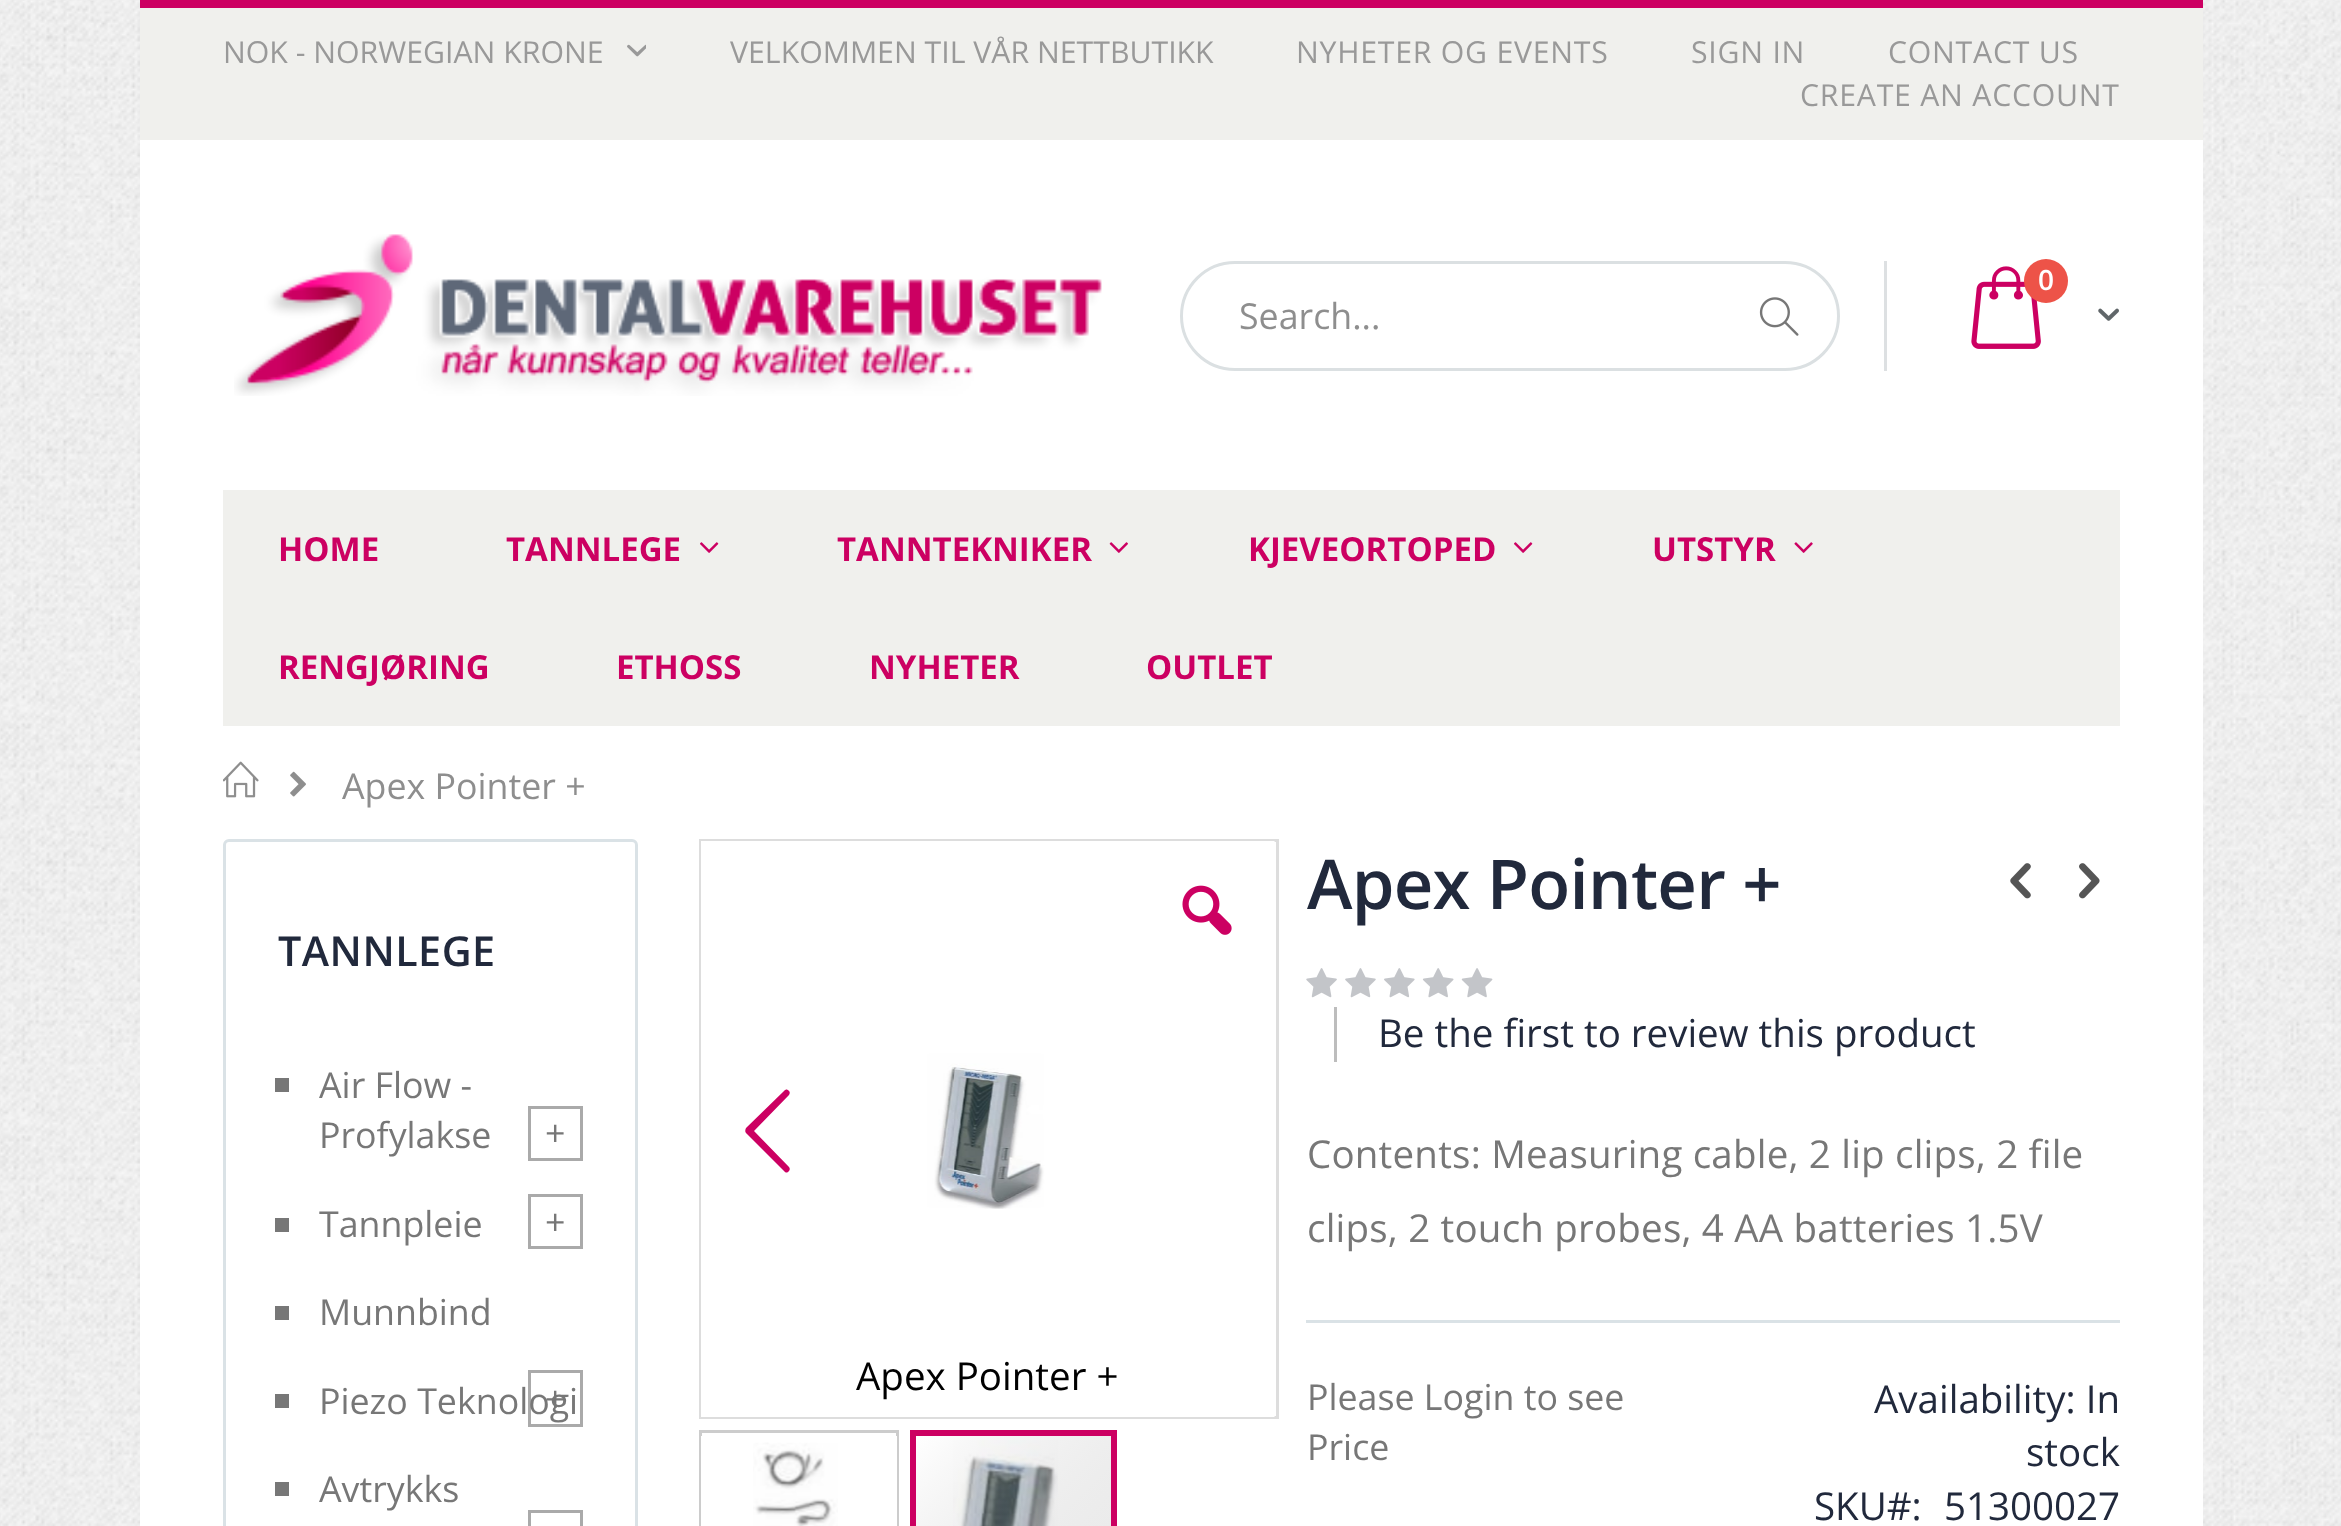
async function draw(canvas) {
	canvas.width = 2341;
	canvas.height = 1526;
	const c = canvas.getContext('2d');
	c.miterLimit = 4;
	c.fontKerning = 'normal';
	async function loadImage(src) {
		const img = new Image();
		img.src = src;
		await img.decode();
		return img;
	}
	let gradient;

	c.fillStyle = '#fff';
	c.fillRect(0, 0, 2341, 1526);
	c.drawImage(await loadImage('img1.png'), 0, 0, 2341, 1526);
	for (const [x, y, w, h, color] of [
		[140, 140, 2063, 1386, '#fff'],
		[140, 0, 2063, 8, '#cc0062'],
		[140, 8, 2063, 132, '#f0f0ed'],
	]) {
		c.fillStyle = color;
		c.fillRect(x, y, w, h);
	}
	c.font = '30.25px Open Sans';
	c.fillStyle = '#999';
	c.fillText('NOK - NORWEGIAN KRONE', 223, 63);
	c.drawImage(await loadImage('img2.png'), 627, 44, 19, 13);
	c.fillText('VELKOMMEN TIL VÅR NETTBUTIKK', 730, 63);
	c.letterSpacing = '0.75px';
	for (const [text, x, y] of [
		['NYHETER OG EVENTS', 1296, 63],
		['SIGN IN', 1691, 63],
		['CONTACT US', 1888, 63],
		['CREATE AN ACCOUNT', 1800, 106],
	]) {
		c.fillText(text, x, y);
	}
	c.drawImage(await loadImage('img3.png'), 234, 234, 868, 162);
	c.fillStyle = '#dde0e2';
	c.fillRect(1884, 261, 3, 110);
	c.drawImage(await loadImage('img4.png'), 1971, 266, 70, 83);
	c.fillStyle = '#ed5348';
	c.beginPath();
	c.arc(2046, 281, 22, 0, 2 * Math.PI);
	c.fill();
	c.letterSpacing = '0px';
	c.font = '600 28px Open Sans';
	c.fillStyle = '#fff';
	c.fillText('0', 2038, 290);
	c.drawImage(await loadImage('img5.png'), 2098, 308, 21, 13);
	c.beginPath();
	c.roundRect(1181.5, 262.5, 657, 107, 53.5);
	c.strokeStyle = '#dbe0e2';
	c.lineWidth = 3;
	c.stroke();
	c.font = '35.75px Open Sans';
	c.fillStyle = '#8e8e8e';
	c.fillText('Search...', 1239, 329);
	c.drawImage(await loadImage('img6.png'), 1759, 297, 40, 39);
	c.fillStyle = '#f0f0ed';
	c.fillRect(223, 490, 1897, 236);
	c.font = 'bold 33px Open Sans';
	c.fillStyle = '#cc0062';
	c.fillText('HOME', 278, 561);
	c.fillText('TANNLEGE', 506, 561);
	c.drawImage(await loadImage('img7.png'), 700, 542, 19, 11);
	c.fillText('TANNTEKNIKER', 837, 561);
	c.drawImage(await loadImage('img8.png'), 1109, 542, 19, 11);
	c.fillText('KJEVEORTOPED', 1248, 561);
	c.drawImage(await loadImage('img7.png'), 1514, 542, 19, 11);
	c.fillText('UTSTYR', 1652, 561);
	c.drawImage(await loadImage('img9.png'), 1794, 542, 19, 11);
	for (const [text, x, y] of [
		['RENGJØRING', 278, 679],
		['ETHOSS', 616, 679],
		['NYHETER', 869, 679],
		['OUTLET', 1146, 679],
	]) {
		c.fillText(text, x, y);
	}
	c.drawImage(await loadImage('img10.png'), 223, 761, 36, 37);
	c.drawImage(await loadImage('img11.png'), 290, 771, 16, 26);
	c.font = '35.75px Open Sans';
	c.fillStyle = '#8e8e8e';
	c.fillText('Apex Pointer +', 342, 799);
	c.beginPath();
	c.roundRect(224.5, 840.5, 412, 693, 4.5);
	c.strokeStyle = '#dae2e6';
	c.stroke();
	c.letterSpacing = '0.5px';
	c.font = '600 41.25px Open Sans';
	c.fillStyle = '#21293c';
	c.fillText('TANNLEGE', 278, 966);
	c.fillStyle = '#777';
	c.fillRect(275, 1078, 14, 14);
	c.letterSpacing = '0px';
	c.font = '35.75px Open Sans';
	c.fillText('Air Flow -', 319, 1098);
	c.fillText('Profylakse', 319, 1148);
	c.strokeStyle = '#aaa';
	c.strokeRect(529.5, 1107.5, 52, 52);
	c.fillText('+', 545, 1146);
	c.fillRect(275, 1218, 14, 14);
	c.fillText('Tannpleie', 319, 1237);
	c.strokeRect(529.5, 1195.5, 52, 52);
	c.fillText('+', 545, 1235);
	c.fillRect(275, 1306, 14, 14);
	c.fillText('Munnbind', 319, 1325);
	c.strokeRect(529.5, 1371.5, 52, 54);
	c.fillText('+', 545, 1412);
	c.fillText('Piezo Teknologi', 319, 1414);
	c.fillRect(275, 1394, 14, 14);
	c.fillRect(275, 1482, 14, 14);
	c.fillText('Avtrykks', 319, 1502);
	c.strokeRect(529.5, 1511.5, 52, 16);
	c.strokeStyle = '#ddd';
	c.strokeRect(700.5, 840.5, 577, 577);
	c.drawImage(await loadImage('img13.png'), 701, 841, 574, 576);
	c.drawImage(await loadImage('img12.png'), 1182, 885, 50, 50);
	c.fillStyle = '#cc0062';
	c.beginPath();
	c.moveTo(789, 1167);
	c.bezierCurveTo(790, 1168, 790, 1170, 789, 1171);
	c.bezierCurveTo(787, 1173, 786, 1173, 784, 1171);
	c.lineTo(746, 1133);
	c.bezierCurveTo(745, 1132, 745, 1130, 746, 1128);
	c.lineTo(784, 1091);
	c.bezierCurveTo(786, 1089, 787, 1089, 789, 1091);
	c.bezierCurveTo(790, 1092, 790, 1093, 789, 1095);
	c.lineTo(754, 1131);
	c.closePath();
	c.fill();
	c.font = '38.5px Open Sans';
	c.fillStyle = '#000';
	c.fillText('Apex Pointer +', 856, 1390);
	c.strokeStyle = '#ccc';
	c.strokeRect(700.5, 1431.5, 197, 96);
	c.strokeStyle = '#fff';
	c.lineWidth = 8;
	c.strokeRect(705, 1440, 188, 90);
	c.drawImage(await loadImage('img14.png'), 753, 1442, 85, 84);
	c.drawImage(await loadImage('img15.png'), 953, 1440, 105, 86);
	gradient = c.createLinearGradient(916, 1436, 1111, 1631);
	gradient.addColorStop(0, '#ffffff40');
	gradient.addColorStop(1, '#4040401a');
	c.fillStyle = gradient;
	c.fillRect(916, 1436, 195, 90);
	c.strokeStyle = '#cc0062';
	c.lineWidth = 6;
	c.strokeRect(913, 1433, 201, 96);
	c.letterSpacing = '-0.75px';
	c.font = '600 68.75px Open Sans';
	c.fillStyle = '#21293c';
	c.fillText('Apex Pointer +', 1307, 909);
	c.drawImage(await loadImage('img16.png'), 2010, 863, 21, 36);
	c.drawImage(await loadImage('img17.png'), 2079, 863, 21, 36);
	c.drawImage(await loadImage('img18.png'), 1306, 968, 187, 30);
	c.fillStyle = '#bdbdbd';
	c.fillRect(1334, 1007, 3, 55);
	c.letterSpacing = '0px';
	c.font = '38.5px Open Sans';
	c.fillStyle = '#21293c';
	c.fillText('Be the first to review this product', 1378, 1047);
	c.fillStyle = '#dae2e6';
	c.fillRect(1306, 1320, 814, 3);
	c.letterSpacing = '0.2px';
	c.fillStyle = '#777';
	c.fillText('Contents: Measuring cable, 2 lip clips, 2 file', 1307, 1168);
	c.fillText('clips, 2 touch probes, 4 AA batteries 1.5V', 1307, 1242);
	c.letterSpacing = '0px';
	c.font = '35.75px Open Sans';
	c.fillText('Please Login to see', 1307, 1410);
	c.font = '38.5px Open Sans';
	c.fillStyle = '#21293c';
	for (const [text, x, y] of [
		['Availability: In', 1874, 1413],
		['stock', 2026, 1466],
		['SKU#:', 1814, 1520],
		['51300027', 1944, 1520],
	]) {
		c.fillText(text, x, y);
	}
	c.font = '35.75px Open Sans';
	c.fillStyle = '#777';
	c.fillText('Price', 1307, 1460);
}

draw(document.querySelector('canvas'));
